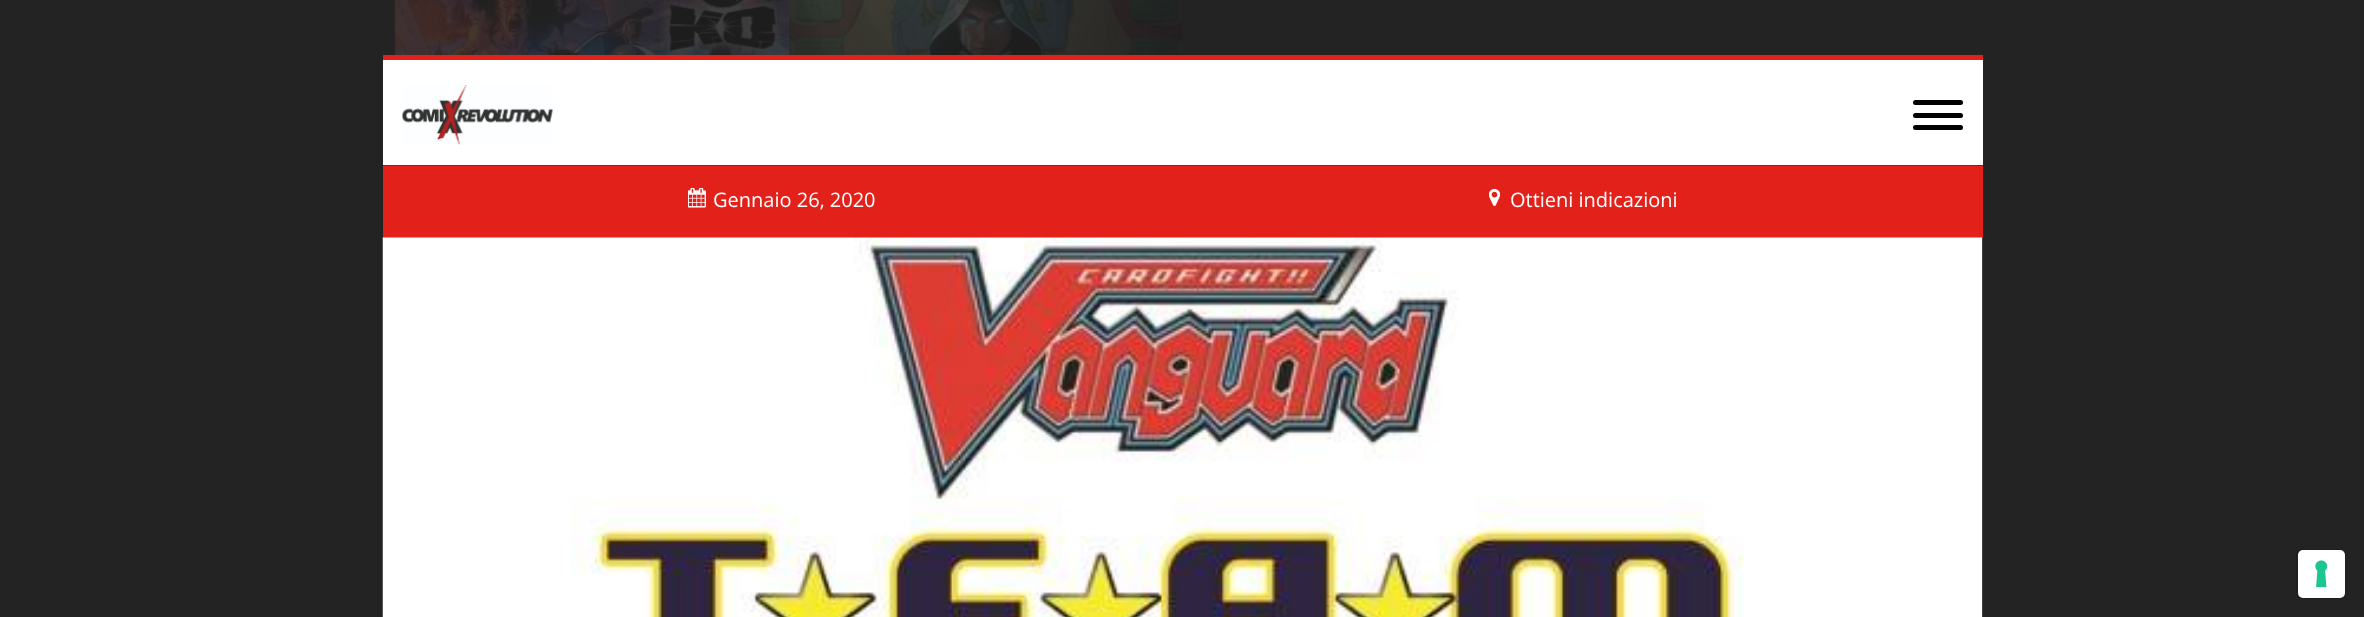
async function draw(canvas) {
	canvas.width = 2364;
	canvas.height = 617;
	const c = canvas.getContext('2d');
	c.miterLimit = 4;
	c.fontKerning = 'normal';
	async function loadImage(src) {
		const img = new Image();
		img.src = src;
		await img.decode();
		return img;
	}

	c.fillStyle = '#232323';
	c.fillRect(0, 0, 2364, 617);
	c.drawImage(await loadImage('img1.png'), 394, 0, 395, 55);
	c.drawImage(await loadImage('img2.png'), 788, 0, 395, 55);
	c.fillStyle = '#e2211b';
	c.fillRect(383, 165, 1600, 73);
	c.fillStyle = '#23232380';
	c.beginPath();
	c.moveTo(383, 165);
	c.lineTo(383, 166);
	c.lineTo(1983, 166);
	c.lineTo(1983, 56);
	c.lineTo(1982, 56);
	c.lineTo(1982, 165);
	c.closePath();
	c.fill();
	c.fillStyle = '#fff';
	c.fillRect(383, 60, 1600, 105);
	c.fillStyle = '#e2211b';
	c.fillRect(383, 55, 1600, 5);
	c.drawImage(await loadImage('img3.png'), 402, 85, 151, 60);
	c.fillStyle = '#000';
	c.beginPath();
	c.roundRect(1913, 113, 50, 5, 2.5);
	c.fill();
	c.beginPath();
	c.roundRect(1913, 100, 50, 5, 2.5);
	c.fill();
	c.beginPath();
	c.roundRect(1913, 125, 50, 5, 2.5);
	c.fill();
	c.drawImage(await loadImage('img4.png'), 688, 188, 18, 20);
	c.font = '20px Open Sans';
	c.fillStyle = '#fff';
	c.fillText('Gennaio 26, 2020', 713, 207);
	c.drawImage(await loadImage('img5.png'), 1489, 188, 11, 18);
	c.fillText('Ottieni indicazioni', 1510, 207);
	c.fillStyle = '#000';
	c.fillRect(1982, 238, 1, 379);
	c.drawImage(await loadImage('img6.png'), 382, 237, 1601, 380);
	c.beginPath();
	c.roundRect(2296.5, 549.5, 49, 49, 5.5);
	c.strokeStyle = '#1e1e1e';
	c.stroke();
	c.fillStyle = '#fff';
	c.beginPath();
	c.roundRect(2298, 550, 47, 48, 5);
	c.fill();
	c.drawImage(await loadImage('img7.png'), 2315, 560, 13, 28);
}

draw(document.querySelector('canvas'));
